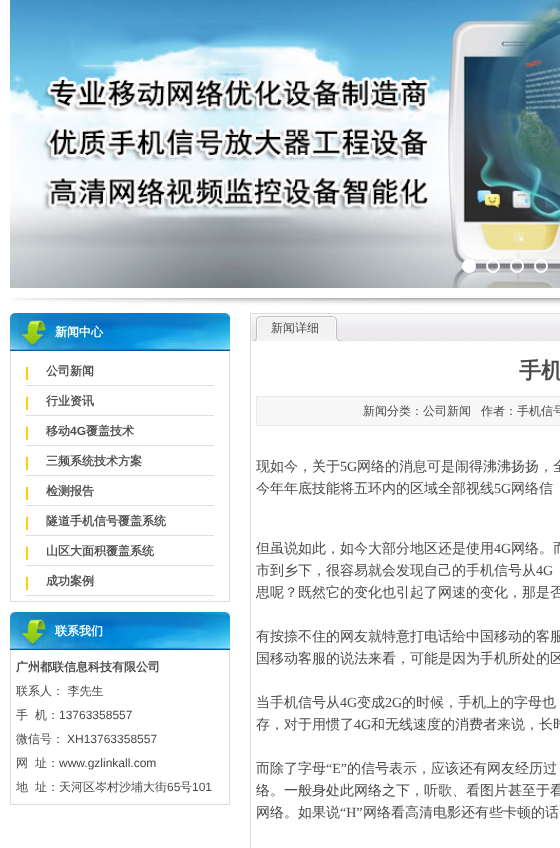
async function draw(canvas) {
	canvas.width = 560;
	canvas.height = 848;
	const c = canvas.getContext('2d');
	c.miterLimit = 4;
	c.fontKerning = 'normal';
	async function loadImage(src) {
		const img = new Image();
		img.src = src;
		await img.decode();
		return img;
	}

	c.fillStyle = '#fff';
	c.fillRect(0, 0, 560, 848);
	c.drawImage(await loadImage('img1.png'), 10, 0, 550, 288);
	c.beginPath();
	c.arc(469, 266, 6, 0, 2 * Math.PI);
	c.fill();
	c.strokeStyle = '#fff';
	c.lineWidth = 2;
	c.stroke();
	c.beginPath();
	c.arc(493, 266, 6, 0, 2 * Math.PI);
	c.stroke();
	c.beginPath();
	c.arc(517, 266, 6, 0, 2 * Math.PI);
	c.stroke();
	c.beginPath();
	c.arc(541, 266, 6, 0, 2 * Math.PI);
	c.stroke();
	c.drawImage(await loadImage('img2.png'), 9, 298, 551, 17);
	c.drawImage(await loadImage('img3.png'), 10, 313, 220, 38);
	c.font = 'bold 12px WenQuanYi Zen Hei';
	c.fillText('新闻中心', 55, 336);
	for (const [x, y, w, h, color] of [
		[229, 351, 1, 251, '#ddd'],
		[10, 601, 220, 1, '#ddd'],
		[10, 351, 1, 251, '#ddd'],
	]) {
		c.fillStyle = color;
		c.fillRect(x, y, w, h);
	}
	c.drawImage(await loadImage('img4.png'), 26, 364, 188, 22);
	c.fillStyle = '#505050';
	c.fillText('公司新闻', 46, 375);
	c.drawImage(await loadImage('img4.png'), 26, 394, 188, 22);
	c.fillText('行业资讯', 46, 405);
	c.drawImage(await loadImage('img4.png'), 26, 424, 188, 22);
	c.fillText('移动', 46, 435);
	c.font = 'bold 12px Liberation Sans';
	c.fillText('4G', 70, 435);
	c.font = 'bold 12px WenQuanYi Zen Hei';
	c.fillText('覆盖技术', 86, 435);
	c.drawImage(await loadImage('img4.png'), 26, 454, 188, 22);
	c.fillText('三频系统技术方案', 46, 465);
	c.drawImage(await loadImage('img4.png'), 26, 484, 188, 22);
	c.fillText('检测报告', 46, 495);
	c.drawImage(await loadImage('img4.png'), 26, 514, 188, 22);
	c.fillText('隧道手机信号覆盖系统', 46, 525);
	c.drawImage(await loadImage('img4.png'), 26, 544, 188, 22);
	c.fillText('山区大面积覆盖系统', 46, 555);
	c.drawImage(await loadImage('img4.png'), 26, 574, 188, 22);
	c.fillText('成功案例', 46, 585);
	c.drawImage(await loadImage('img3.png'), 10, 612, 220, 38);
	c.fillStyle = '#fff';
	c.fillText('联系我们', 55, 635);
	for (const [x, y, w, h, color] of [
		[229, 650, 1, 155, '#ddd'],
		[10, 804, 220, 1, '#ddd'],
		[10, 650, 1, 155, '#ddd'],
	]) {
		c.fillStyle = color;
		c.fillRect(x, y, w, h);
	}
	c.fillStyle = '#4a4a4a';
	c.fillText('广州都联信息科技有限公司', 16, 671);
	c.font = '500 12px WenQuanYi Zen Hei';
	for (const [text, x, y] of [
		['联系人： 李先生', 16, 695],
		['手', 16, 719],
		['机：', 35, 719],
	]) {
		c.fillText(text, x, y);
	}
	c.font = '12px Liberation Sans';
	c.fillText('13763358557', 59, 719);
	c.font = '500 12px WenQuanYi Zen Hei';
	c.fillText('微信号：', 16, 743);
	c.font = '12px Liberation Sans';
	c.fillText('XH13763358557', 67, 743);
	c.font = '500 12px WenQuanYi Zen Hei';
	c.fillText('网', 16, 767);
	c.fillText('址：', 35, 767);
	c.font = '12px Liberation Sans';
	c.fillStyle = '#444';
	c.fillText('www.gzlinkall.com', 59, 767);
	c.font = '500 12px WenQuanYi Zen Hei';
	c.fillStyle = '#4a4a4a';
	c.fillText('地', 16, 791);
	c.fillText('址：天河区岑村沙埔大街', 35, 791);
	c.font = '12px Liberation Sans';
	c.fillText('65', 167, 791);
	c.font = '500 12px WenQuanYi Zen Hei';
	c.fillText('号', 180, 791);
	c.font = '12px Liberation Sans';
	c.fillText('101', 192, 791);
	c.drawImage(await loadImage('img5.png'), 343, 314, 217, 27);
	c.fillStyle = '#ddd';
	c.fillRect(250, 313, 310, 1);
	c.fillRect(250, 313, 1, 535);
	c.drawImage(await loadImage('img6.png'), 251, 314, 92, 27);
	c.font = '500 12px WenQuanYi Zen Hei';
	c.fillStyle = '#4a4a4a';
	c.fillText('新闻详细', 271, 332);
	c.font = 'bold 22px WenQuanYi Zen Hei';
	c.fillText('手机', 519, 378);
	c.fillStyle = '#f7f7f7';
	c.beginPath();
	c.rect(256.5, 396.5, 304, 29);
	c.fill();
	c.strokeStyle = '#e8e8e8';
	c.lineWidth = 1;
	c.stroke();
	c.font = '500 12px WenQuanYi Zen Hei';
	c.fillStyle = '#4a4a4a';
	c.fillText('新闻分类：公司新闻', 363, 415);
	c.fillText('作者：手机信号', 481, 415);
	c.font = '500 14px WenQuanYi Zen Hei';
	c.fillText('现如今，关于', 256, 471);
	c.font = '14px Liberation Serif';
	c.fillText('5G', 340, 471);
	c.font = '500 14px WenQuanYi Zen Hei';
	c.fillText('网络的消息可是闹得沸沸扬扬，全', 357, 471);
	c.fillText('今年年底技能将五环内的区域全部视线', 256, 493);
	c.font = '14px Liberation Serif';
	c.fillText('5G', 494, 493);
	c.font = '500 14px WenQuanYi Zen Hei';
	c.fillText('网络信', 511, 493);
	c.fillText('但虽说如此，如今大部分地区还是使用', 256, 553);
	c.font = '14px Liberation Serif';
	c.fillText('4G', 494, 553);
	c.font = '500 14px WenQuanYi Zen Hei';
	c.fillText('网络。而', 511, 553);
	c.fillText('市到乡下，很容易就会发现自己的手机信号从', 256, 575);
	c.font = '14px Liberation Serif';
	c.fillText('4G', 536, 575);
	c.font = '500 14px WenQuanYi Zen Hei';
	for (const [text, x, y] of [
		['思呢？既然它的变化也引起了网速的变化，那是否', 256, 597],
		['有按捺不住的网友就特意打电话给中国移动的客服', 256, 641],
		['国移动客服的说法来看，可能是因为手机所处的区', 256, 663],
		['当手机信号从', 256, 707],
	]) {
		c.fillText(text, x, y);
	}
	c.font = '14px Liberation Serif';
	c.fillText('4G', 340, 707);
	c.font = '500 14px WenQuanYi Zen Hei';
	c.fillText('变成', 357, 707);
	c.font = '14px Liberation Serif';
	c.fillText('2G', 385, 707);
	c.font = '500 14px WenQuanYi Zen Hei';
	c.fillText('的时候，手机上的字母也', 402, 707);
	c.fillText('存，对于用惯了', 256, 729);
	c.font = '14px Liberation Serif';
	c.fillText('4G', 354, 729);
	c.font = '500 14px WenQuanYi Zen Hei';
	c.fillText('和无线速度的消费者来说，长时', 371, 729);
	c.fillText('而除了字母', 256, 773);
	c.font = '14px Liberation Serif';
	c.fillText('“E”', 326, 773);
	c.font = '500 14px WenQuanYi Zen Hei';
	for (const [text, x, y] of [
		['的信号表示，应该还有网友经历过', 347, 773],
		['络。一般身处此网络之下，听歌、看图片甚至于看', 256, 795],
		['网络。如果说', 256, 817],
	]) {
		c.fillText(text, x, y);
	}
	c.font = '14px Liberation Serif';
	c.fillText('“H”', 340, 817);
	c.font = '500 14px WenQuanYi Zen Hei';
	c.fillText('网络看高清电影还有些卡顿的话', 363, 817);
}

draw(document.querySelector('canvas'));
